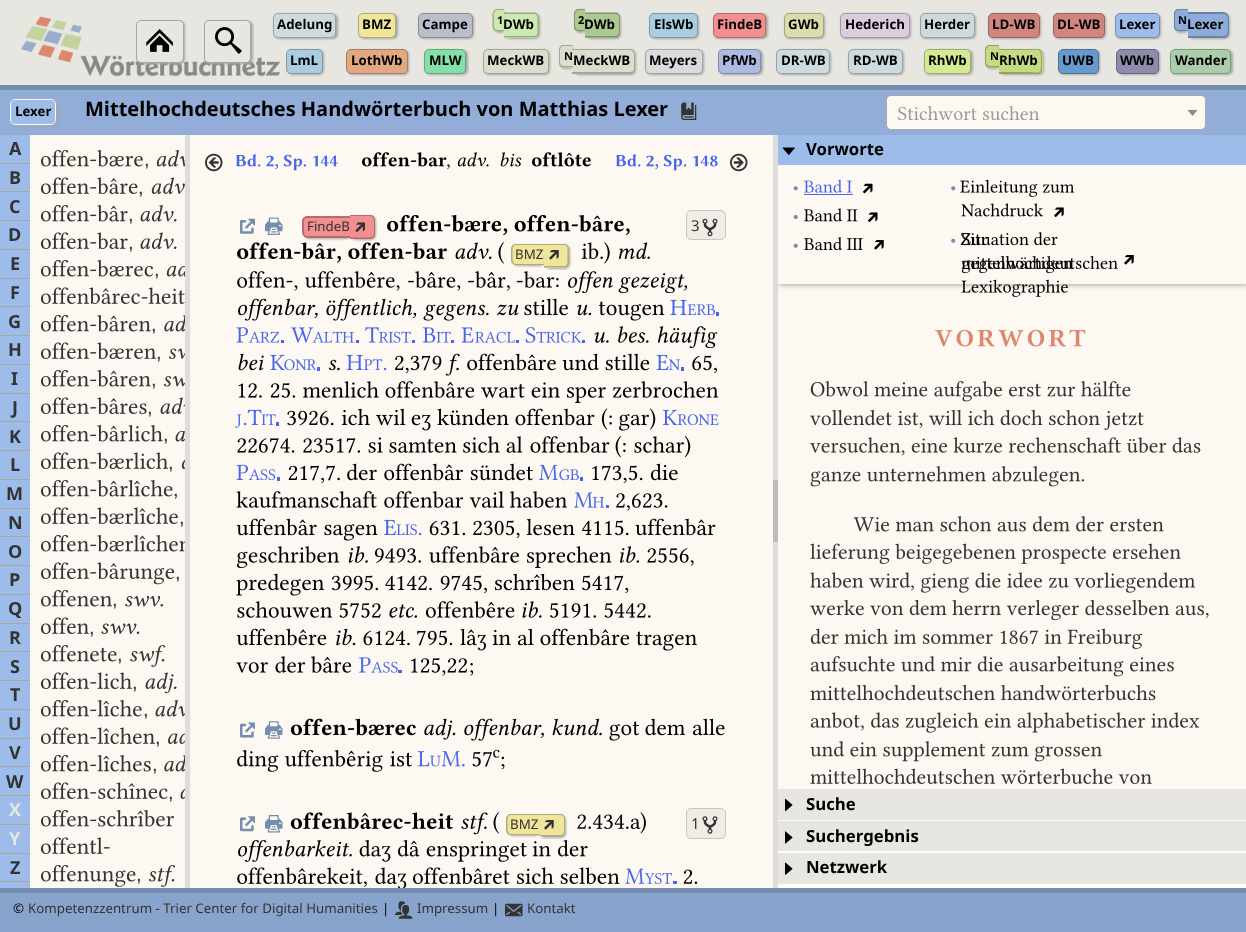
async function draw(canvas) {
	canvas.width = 1246;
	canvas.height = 932;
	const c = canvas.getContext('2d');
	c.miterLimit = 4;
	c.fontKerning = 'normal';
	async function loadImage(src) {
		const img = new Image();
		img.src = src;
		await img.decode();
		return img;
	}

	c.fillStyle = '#758daf';
	c.fillRect(0, 0, 1246, 932);
	c.fillStyle = '#e8e6e1';
	c.fillRect(0, 0, 1246, 85);
	c.drawImage(await loadImage('img1.png'), 21, 16, 259, 61);
	c.fillStyle = '#a8a6a1';
	c.filter = 'blur(1px)';
	c.beginPath();
	c.roundRect(138, 21, 47, 43, 5);
	c.fill();
	c.filter = 'none';
	c.fillStyle = '#e8e6e1';
	c.beginPath();
	c.roundRect(136.5, 20.5, 47, 42, 4.5);
	c.fill();
	c.strokeStyle = '#a8a6a1';
	c.stroke();
	c.drawImage(await loadImage('img2.png'), 146, 29, 27, 23);
	c.fillStyle = '#a8a6a1';
	c.filter = 'blur(1px)';
	c.beginPath();
	c.roundRect(205, 21, 48, 43, 5);
	c.fill();
	c.filter = 'none';
	c.fillStyle = '#e8e6e1';
	c.beginPath();
	c.roundRect(204.5, 20.5, 46, 42, 4.5);
	c.fill();
	c.stroke();
	c.drawImage(await loadImage('img3.png'), 215, 27, 27, 27);
	c.fillStyle = '#a8a6a1';
	c.filter = 'blur(1px)';
	c.beginPath();
	c.roundRect(274, 14, 64, 25, 5);
	c.fill();
	c.filter = 'none';
	c.fillStyle = '#cddade';
	c.beginPath();
	c.roundRect(273.5, 13.5, 62, 24, 4.5);
	c.fill();
	c.strokeStyle = '#99a3a6';
	c.stroke();
	c.font = 'bold 13.3px Noto Sans';
	c.fillStyle = '#000';
	c.fillText('Adelung', 277, 29);
	c.fillStyle = '#a8a6a1';
	c.filter = 'blur(1px)';
	c.beginPath();
	c.roundRect(359, 14, 39, 25, 5);
	c.fill();
	c.filter = 'none';
	c.fillStyle = '#efe59b';
	c.beginPath();
	c.roundRect(358.5, 13.5, 37, 24, 4.5);
	c.fill();
	c.strokeStyle = '#b3ab74';
	c.stroke();
	c.fillStyle = '#000';
	c.fillText('BMZ', 362, 29);
	c.fillStyle = '#a8a6a1';
	c.filter = 'blur(1px)';
	c.beginPath();
	c.roundRect(419, 14, 55, 25, 5);
	c.fill();
	c.filter = 'none';
	c.fillStyle = '#babecb';
	c.beginPath();
	c.roundRect(418.5, 13.5, 54, 24, 4.5);
	c.fill();
	c.strokeStyle = '#8b8e98';
	c.stroke();
	c.fillStyle = '#000';
	c.fillText('Campe', 422, 29);
	c.fillStyle = '#a8a6a1';
	c.filter = 'blur(1px)';
	c.beginPath();
	c.roundRect(494, 10, 11, 23, 5);
	c.fill();
	c.filter = 'none';
	c.fillStyle = '#cee8b3';
	c.beginPath();
	c.roundRect(493, 9, 11, 22, [5, 0, 0, 5]);
	c.fill();
	c.fillStyle = '#9aae86';
	c.beginPath();
	c.moveTo(497.5, 9);
	c.lineTo(504, 9);
	c.lineTo(504, 31);
	c.bezierCurveTo(500, 31, 493.5, 32.5, 492.5, 27.5);
	c.lineTo(492.5, 20);
	c.bezierCurveTo(492.5, 16, 491.5, 9, 497.5, 9);
	c.closePath();
	c.moveTo(497.5, 10);
	c.lineTo(504, 10);
	c.lineTo(504, 30);
	c.bezierCurveTo(493.5, 30, 494, 31, 494, 20);
	c.bezierCurveTo(494, 17, 492.5, 10, 497.5, 10);
	c.closePath();
	c.fill('evenodd');
	c.fillStyle = '#a8a6a1';
	c.filter = 'blur(1px)';
	c.beginPath();
	c.roundRect(505, 14, 35, 25, 5);
	c.fill();
	c.filter = 'none';
	c.font = 'bold 11px Noto Sans';
	c.fillStyle = '#000';
	c.fillText('1', 497, 24);
	c.fillStyle = '#cee8b3';
	c.beginPath();
	c.roundRect(504, 13, 35, 25, [0, 5, 5, 0]);
	c.fill();
	c.fillStyle = '#9aae86';
	c.beginPath();
	c.moveTo(504, 12.5);
	c.lineTo(534, 12.5);
	c.bezierCurveTo(536.5, 12.5, 539, 14.5, 539, 17.5);
	c.lineTo(539, 32.5);
	c.bezierCurveTo(539, 35.5, 536.5, 37.5, 534, 37.5);
	c.lineTo(504, 37.5);
	c.closePath();
	c.moveTo(504, 14);
	c.lineTo(534, 14);
	c.bezierCurveTo(536, 14, 537.5, 15.5, 537.5, 17.5);
	c.lineTo(537.5, 32.5);
	c.bezierCurveTo(537.5, 34.5, 536, 36, 534, 36);
	c.lineTo(504, 36);
	c.closePath();
	c.fill('evenodd');
	c.font = 'bold 13.3px Noto Sans';
	c.fillStyle = '#000';
	c.fillText('DWb', 503, 29);
	c.fillStyle = '#a8a6a1';
	c.filter = 'blur(1px)';
	c.beginPath();
	c.roundRect(575, 10, 11, 23, 5);
	c.fill();
	c.filter = 'none';
	c.fillStyle = '#aec893';
	c.beginPath();
	c.roundRect(574, 9, 11, 22, [5, 0, 0, 5]);
	c.fill();
	c.fillStyle = '#82966e';
	c.beginPath();
	c.moveTo(579, 9);
	c.lineTo(585, 9);
	c.lineTo(585, 31);
	c.bezierCurveTo(581, 31, 575, 32.5, 574, 27.5);
	c.lineTo(574, 20);
	c.bezierCurveTo(574, 16, 572.5, 9, 579, 9);
	c.closePath();
	c.moveTo(579, 10);
	c.lineTo(585, 10);
	c.lineTo(585, 30);
	c.bezierCurveTo(575, 30, 575, 31, 575, 20);
	c.bezierCurveTo(575, 17, 573.5, 10, 579, 10);
	c.closePath();
	c.fill('evenodd');
	c.fillStyle = '#a8a6a1';
	c.filter = 'blur(1px)';
	c.beginPath();
	c.roundRect(586, 14, 35, 25, 5);
	c.fill();
	c.filter = 'none';
	c.font = 'bold 11px Noto Sans';
	c.fillStyle = '#000';
	c.fillText('2', 578, 24);
	c.fillStyle = '#aec893';
	c.beginPath();
	c.roundRect(585, 13, 35, 25, [0, 5, 5, 0]);
	c.fill();
	c.fillStyle = '#82966e';
	c.beginPath();
	c.moveTo(585, 12.5);
	c.lineTo(615, 12.5);
	c.bezierCurveTo(618, 12.5, 620, 14.5, 620, 17.5);
	c.lineTo(620, 32.5);
	c.bezierCurveTo(620, 35.5, 618, 37.5, 615, 37.5);
	c.lineTo(585, 37.5);
	c.closePath();
	c.moveTo(585, 14);
	c.lineTo(615, 14);
	c.bezierCurveTo(617, 14, 619, 15.5, 619, 17.5);
	c.lineTo(619, 32.5);
	c.bezierCurveTo(619, 34.5, 617, 36, 615, 36);
	c.lineTo(585, 36);
	c.closePath();
	c.fill('evenodd');
	c.font = 'bold 13.3px Noto Sans';
	c.fillStyle = '#000';
	c.fillText('DWb', 584, 29);
	c.fillStyle = '#a8a6a1';
	c.filter = 'blur(1px)';
	c.beginPath();
	c.roundRect(650, 14, 49, 25, 5);
	c.fill();
	c.filter = 'none';
	c.fillStyle = '#aacddf';
	c.beginPath();
	c.roundRect(649.5, 13.5, 48, 24, 4.5);
	c.fill();
	c.strokeStyle = '#7f99a7';
	c.stroke();
	c.fillStyle = '#000';
	c.fillText('ElsWb', 654, 29);
	c.fillStyle = '#a8a6a1';
	c.filter = 'blur(1px)';
	c.beginPath();
	c.roundRect(714, 14, 54, 25, 5);
	c.fill();
	c.filter = 'none';
	c.fillStyle = '#f28f8f';
	c.beginPath();
	c.roundRect(713.5, 13.5, 52, 24, 4.5);
	c.fill();
	c.strokeStyle = '#b56b6b';
	c.stroke();
	c.fillStyle = '#000';
	c.fillText('FindeB', 717, 29);
	c.fillStyle = '#a8a6a1';
	c.filter = 'blur(1px)';
	c.beginPath();
	c.roundRect(785, 14, 40, 25, 5);
	c.fill();
	c.filter = 'none';
	c.fillStyle = '#dbdbac';
	c.beginPath();
	c.roundRect(784.5, 13.5, 39, 24, 4.5);
	c.fill();
	c.strokeStyle = '#a4a481';
	c.stroke();
	c.fillStyle = '#000';
	c.fillText('GWb', 788, 29);
	c.fillStyle = '#a8a6a1';
	c.filter = 'blur(1px)';
	c.beginPath();
	c.roundRect(841, 14, 70, 25, 5);
	c.fill();
	c.filter = 'none';
	c.fillStyle = '#dacdde';
	c.beginPath();
	c.roundRect(840.5, 13.5, 69, 24, 4.5);
	c.fill();
	c.strokeStyle = '#a399a6';
	c.stroke();
	c.fillStyle = '#000';
	c.fillText('Hederich', 845, 29);
	c.fillStyle = '#a8a6a1';
	c.filter = 'blur(1px)';
	c.beginPath();
	c.roundRect(921, 14, 55, 25, 5);
	c.fill();
	c.filter = 'none';
	c.fillStyle = '#ccdade';
	c.beginPath();
	c.roundRect(920.5, 13.5, 54, 24, 4.5);
	c.fill();
	c.strokeStyle = '#99a3a6';
	c.stroke();
	c.fillStyle = '#000';
	c.fillText('Herder', 924, 29);
	c.fillStyle = '#a8a6a1';
	c.filter = 'blur(1px)';
	c.beginPath();
	c.roundRect(989, 14, 52, 25, 5);
	c.fill();
	c.filter = 'none';
	c.fillStyle = '#d08581';
	c.beginPath();
	c.roundRect(988.5, 13.5, 51, 24, 4.5);
	c.fill();
	c.strokeStyle = '#9c6360';
	c.stroke();
	c.fillStyle = '#000';
	c.fillText('LD-WB', 992, 29);
	c.fillStyle = '#a8a6a1';
	c.filter = 'blur(1px)';
	c.beginPath();
	c.roundRect(1054, 14, 52, 25, 5);
	c.fill();
	c.filter = 'none';
	c.fillStyle = '#d08581';
	c.beginPath();
	c.roundRect(1053.5, 13.5, 51, 24, 4.5);
	c.fill();
	c.stroke();
	c.fillStyle = '#000';
	c.fillText('DL-WB', 1057, 29);
	c.fillStyle = '#a8a6a1';
	c.filter = 'blur(1px)';
	c.beginPath();
	c.roundRect(1116, 14, 45, 25, 5);
	c.fill();
	c.filter = 'none';
	c.fillStyle = '#9dbcea';
	c.beginPath();
	c.roundRect(1115.5, 13.5, 44, 24, 4.5);
	c.fill();
	c.strokeStyle = '#758daf';
	c.stroke();
	c.fillStyle = '#000';
	c.fillText('Lexer', 1119, 29);
	c.fillStyle = '#a8a6a1';
	c.filter = 'blur(1px)';
	c.beginPath();
	c.roundRect(1175, 10, 14, 23, 5);
	c.fill();
	c.filter = 'none';
	c.fillStyle = '#8dacda';
	c.beginPath();
	c.roundRect(1174, 9, 14, 22, [5, 0, 0, 5]);
	c.fill();
	c.fillStyle = '#6981a3';
	c.beginPath();
	c.moveTo(1179, 9);
	c.lineTo(1187.5, 9);
	c.lineTo(1187.5, 31);
	c.lineTo(1179, 31);
	c.bezierCurveTo(1176, 31, 1174, 29, 1174, 26);
	c.lineTo(1174, 14);
	c.bezierCurveTo(1174, 11, 1176, 9, 1179, 9);
	c.closePath();
	c.moveTo(1179, 10);
	c.lineTo(1187.5, 10);
	c.lineTo(1187.5, 30);
	c.lineTo(1179, 30);
	c.bezierCurveTo(1176.5, 30, 1175, 28.5, 1175, 26);
	c.lineTo(1175, 14);
	c.bezierCurveTo(1175, 11.5, 1176.5, 10, 1179, 10);
	c.closePath();
	c.fill('evenodd');
	c.fillStyle = '#a8a6a1';
	c.filter = 'blur(1px)';
	c.beginPath();
	c.roundRect(1189, 14, 41, 25, 5);
	c.fill();
	c.filter = 'none';
	c.font = 'bold 11px Noto Sans';
	c.fillStyle = '#000';
	c.fillText('N', 1178, 24);
	c.fillStyle = '#8dacda';
	c.beginPath();
	c.roundRect(1188, 13, 41, 25, [0, 5, 5, 0]);
	c.fill();
	c.fillStyle = '#6981a3';
	c.beginPath();
	c.moveTo(1188, 12);
	c.lineTo(1212, 12);
	c.bezierCurveTo(1228, 12, 1229, 10, 1229, 25);
	c.bezierCurveTo(1229, 40, 1228, 38, 1212, 38);
	c.lineTo(1188, 38);
	c.closePath();
	c.moveTo(1188, 14);
	c.lineTo(1212, 14);
	c.bezierCurveTo(1227, 14, 1228, 11, 1228, 25);
	c.bezierCurveTo(1228, 39, 1227, 36, 1212, 36);
	c.lineTo(1188, 36);
	c.closePath();
	c.fill('evenodd');
	c.font = 'bold 13.3px Noto Sans';
	c.fillStyle = '#000';
	c.fillText('Lexer', 1187, 29);
	c.fillStyle = '#a8a6a1';
	c.filter = 'blur(1px)';
	c.beginPath();
	c.roundRect(288, 50, 36, 25, 5);
	c.fill();
	c.filter = 'none';
	c.fillStyle = '#aacddf';
	c.beginPath();
	c.roundRect(286.5, 49.5, 36, 24, 4.5);
	c.fill();
	c.strokeStyle = '#7f99a7';
	c.stroke();
	c.fillStyle = '#000';
	c.fillText('LmL', 290, 65);
	c.fillStyle = '#a8a6a1';
	c.filter = 'blur(1px)';
	c.beginPath();
	c.roundRect(348, 50, 61, 25, 5);
	c.fill();
	c.filter = 'none';
	c.fillStyle = '#e0a984';
	c.beginPath();
	c.roundRect(346.5, 49.5, 61, 24, 4.5);
	c.fill();
	c.strokeStyle = '#a87e63';
	c.stroke();
	c.fillStyle = '#000';
	c.fillText('LothWb', 351, 65);
	c.fillStyle = '#a8a6a1';
	c.filter = 'blur(1px)';
	c.beginPath();
	c.roundRect(425, 50, 43, 25, 5);
	c.fill();
	c.filter = 'none';
	c.fillStyle = '#84e0a9';
	c.beginPath();
	c.roundRect(424.5, 49.5, 41, 24, 4.5);
	c.fill();
	c.strokeStyle = '#63a87e';
	c.stroke();
	c.fillStyle = '#000';
	c.fillText('MLW', 429, 65);
	c.fillStyle = '#a8a6a1';
	c.filter = 'blur(1px)';
	c.beginPath();
	c.roundRect(484, 50, 66, 25, 5);
	c.fill();
	c.filter = 'none';
	c.fillStyle = '#dadecd';
	c.beginPath();
	c.roundRect(483.5, 49.5, 65, 24, 4.5);
	c.fill();
	c.strokeStyle = '#a3a699';
	c.stroke();
	c.fillStyle = '#000';
	c.fillText('MeckWB', 487, 65);
	c.fillStyle = '#a8a6a1';
	c.filter = 'blur(1px)';
	c.beginPath();
	c.roundRect(560, 46, 14, 23, 5);
	c.fill();
	c.filter = 'none';
	c.fillStyle = '#dadecd';
	c.beginPath();
	c.roundRect(559, 45, 14, 23, [5, 0, 0, 5]);
	c.fill();
	c.fillStyle = '#a3a699';
	c.beginPath();
	c.moveTo(564, 45);
	c.lineTo(572.5, 45);
	c.lineTo(572.5, 67.5);
	c.lineTo(564, 67.5);
	c.bezierCurveTo(561, 67.5, 559, 65.5, 559, 62.5);
	c.lineTo(559, 50);
	c.bezierCurveTo(559, 47, 561, 45, 564, 45);
	c.closePath();
	c.moveTo(564, 46);
	c.lineTo(572.5, 46);
	c.lineTo(572.5, 66);
	c.lineTo(564, 66);
	c.bezierCurveTo(561.5, 66, 560, 64.5, 560, 62.5);
	c.lineTo(560, 50);
	c.bezierCurveTo(560, 48, 561.5, 46, 564, 46);
	c.closePath();
	c.fill('evenodd');
	c.fillStyle = '#a8a6a1';
	c.filter = 'blur(1px)';
	c.beginPath();
	c.roundRect(574, 50, 62, 25, 5);
	c.fill();
	c.filter = 'none';
	c.font = 'bold 11px Noto Sans';
	c.fillStyle = '#000';
	c.fillText('N', 564, 60);
	c.fillStyle = '#dadecd';
	c.beginPath();
	c.roundRect(573, 49, 62, 25, [0, 5, 5, 0]);
	c.fill();
	c.fillStyle = '#a3a699';
	c.beginPath();
	c.moveTo(572, 49);
	c.lineTo(630, 49);
	c.bezierCurveTo(633, 49, 635, 51, 635, 54);
	c.lineTo(635, 69);
	c.bezierCurveTo(635, 72, 633, 74, 630, 74);
	c.lineTo(572, 74);
	c.closePath();
	c.moveTo(572, 50);
	c.lineTo(630, 50);
	c.bezierCurveTo(632, 50, 634, 52, 634, 54);
	c.lineTo(634, 69);
	c.bezierCurveTo(634, 71, 632, 72, 630, 72);
	c.lineTo(572, 72);
	c.closePath();
	c.fill('evenodd');
	c.font = 'bold 13.3px Noto Sans';
	c.fillStyle = '#000';
	c.fillText('MeckWB', 573, 65);
	c.fillStyle = '#a8a6a1';
	c.filter = 'blur(1px)';
	c.beginPath();
	c.roundRect(646, 50, 58, 25, 5);
	c.fill();
	c.filter = 'none';
	c.fillStyle = '#dddade';
	c.beginPath();
	c.roundRect(645.5, 49.5, 57, 24, 4.5);
	c.fill();
	c.strokeStyle = '#a5a3a6';
	c.stroke();
	c.fillStyle = '#000';
	c.fillText('Meyers', 649, 65);
	c.fillStyle = '#a8a6a1';
	c.filter = 'blur(1px)';
	c.beginPath();
	c.roundRect(719, 50, 44, 25, 5);
	c.fill();
	c.filter = 'none';
	c.fillStyle = '#adbae2';
	c.beginPath();
	c.roundRect(718.5, 49.5, 42, 24, 4.5);
	c.fill();
	c.strokeStyle = '#818ba9';
	c.stroke();
	c.fillStyle = '#000';
	c.fillText('PfWb', 722, 65);
	c.fillStyle = '#a8a6a1';
	c.filter = 'blur(1px)';
	c.beginPath();
	c.roundRect(778, 50, 53, 25, 5);
	c.fill();
	c.filter = 'none';
	c.fillStyle = '#cddade';
	c.beginPath();
	c.roundRect(776.5, 49.5, 53, 24, 4.5);
	c.fill();
	c.strokeStyle = '#99a3a6';
	c.stroke();
	c.fillStyle = '#000';
	c.fillText('DR-WB', 781, 65);
	c.fillStyle = '#a8a6a1';
	c.filter = 'blur(1px)';
	c.beginPath();
	c.roundRect(849, 50, 55, 25, 5);
	c.fill();
	c.filter = 'none';
	c.fillStyle = '#cddade';
	c.beginPath();
	c.roundRect(848.5, 49.5, 54, 24, 4.5);
	c.fill();
	c.stroke();
	c.fillStyle = '#000';
	c.fillText('RD-WB', 853, 65);
	c.fillStyle = '#a8a6a1';
	c.filter = 'blur(1px)';
	c.beginPath();
	c.roundRect(925, 50, 48, 25, 5);
	c.fill();
	c.filter = 'none';
	c.fillStyle = '#d5ea95';
	c.beginPath();
	c.roundRect(924.5, 49.5, 46, 24, 4.5);
	c.fill();
	c.strokeStyle = '#9faf6f';
	c.stroke();
	c.fillStyle = '#000';
	c.fillText('RhWb', 928, 65);
	c.fillStyle = '#a8a6a1';
	c.filter = 'blur(1px)';
	c.beginPath();
	c.roundRect(986, 46, 14, 23, 5);
	c.fill();
	c.filter = 'none';
	c.fillStyle = '#c5da85';
	c.beginPath();
	c.roundRect(985, 45, 14, 23, [5, 0, 0, 5]);
	c.fill();
	c.fillStyle = '#93a363';
	c.beginPath();
	c.moveTo(990, 45);
	c.lineTo(999, 45);
	c.lineTo(999, 67.5);
	c.lineTo(990, 67.5);
	c.bezierCurveTo(987, 67.5, 985, 65.5, 985, 62.5);
	c.lineTo(985, 50);
	c.bezierCurveTo(985, 47, 987, 45, 990, 45);
	c.closePath();
	c.moveTo(990, 46);
	c.lineTo(999, 46);
	c.lineTo(999, 66);
	c.lineTo(990, 66);
	c.bezierCurveTo(988, 66, 986, 64.5, 986, 62.5);
	c.lineTo(986, 50);
	c.bezierCurveTo(986, 48, 988, 46, 990, 46);
	c.closePath();
	c.fill('evenodd');
	c.fillStyle = '#a8a6a1';
	c.filter = 'blur(1px)';
	c.beginPath();
	c.roundRect(1000, 50, 44, 25, 5);
	c.fill();
	c.filter = 'none';
	c.font = 'bold 11px Noto Sans';
	c.fillStyle = '#000';
	c.fillText('N', 990, 60);
	c.fillStyle = '#c5da85';
	c.beginPath();
	c.roundRect(999, 49, 44, 25, [0, 5, 5, 0]);
	c.fill();
	c.fillStyle = '#93a363';
	c.beginPath();
	c.moveTo(999, 49);
	c.lineTo(1038, 49);
	c.bezierCurveTo(1040, 49, 1042, 51, 1042, 54);
	c.lineTo(1042, 69);
	c.bezierCurveTo(1042, 72, 1040, 74, 1038, 74);
	c.lineTo(999, 74);
	c.closePath();
	c.moveTo(999, 50);
	c.lineTo(1025, 50);
	c.bezierCurveTo(1041, 50, 1041, 47, 1041, 61);
	c.bezierCurveTo(1041, 76, 1041, 72, 1025, 72);
	c.lineTo(999, 72);
	c.closePath();
	c.fill('evenodd');
	c.font = 'bold 13.3px Noto Sans';
	c.fillStyle = '#000';
	c.fillText('RhWb', 999, 65);
	c.fillStyle = '#a8a6a1';
	c.filter = 'blur(1px)';
	c.beginPath();
	c.roundRect(1059, 50, 41, 25, 5);
	c.fill();
	c.filter = 'none';
	c.fillStyle = '#69c';
	c.beginPath();
	c.roundRect(1058.5, 49.5, 40, 24, 4.5);
	c.fill();
	c.strokeStyle = '#4c7299';
	c.stroke();
	c.fillStyle = '#000';
	c.fillText('UWB', 1062, 65);
	c.fillStyle = '#a8a6a1';
	c.filter = 'blur(1px)';
	c.beginPath();
	c.roundRect(1118, 50, 42, 25, 5);
	c.fill();
	c.filter = 'none';
	c.fillStyle = '#8d8cad';
	c.beginPath();
	c.roundRect(1116.5, 49.5, 42, 24, 4.5);
	c.fill();
	c.strokeStyle = '#696981';
	c.stroke();
	c.fillStyle = '#000';
	c.fillText('WWb', 1120, 65);
	c.fillStyle = '#a8a6a1';
	c.filter = 'blur(1px)';
	c.beginPath();
	c.roundRect(1171, 50, 62, 25, 5);
	c.fill();
	c.filter = 'none';
	c.fillStyle = '#aacdaa';
	c.beginPath();
	c.roundRect(1170.5, 49.5, 60, 24, 4.5);
	c.fill();
	c.strokeStyle = '#7f997f';
	c.stroke();
	c.fillStyle = '#000';
	c.fillText('Wander', 1175, 65);
	c.fillStyle = '#91add8';
	c.fillRect(0, 90, 1246, 45);
	c.fillStyle = '#a8a6a1';
	c.filter = 'blur(1px)';
	c.beginPath();
	c.roundRect(11, 100, 47, 26, 5);
	c.fill();
	c.filter = 'none';
	c.fillStyle = '#9dbcea';
	c.beginPath();
	c.roundRect(10.5, 99.5, 45, 25, 4.5);
	c.fill();
	c.strokeStyle = '#fdf9f2';
	c.stroke();
	c.fillStyle = '#000';
	c.fillText('Lexer', 15, 116);
	c.font = 'bold 20px Noto Sans';
	c.fillText('Mittelhochdeutsches Handwörterbuch von Matthias Lexer', 85, 116);
	c.drawImage(await loadImage('img4.png'), 681, 102, 16, 18);
	c.fillStyle = '#fdf9f2';
	c.beginPath();
	c.roundRect(886.5, 95.5, 319, 34, 4.5);
	c.fill();
	c.strokeStyle = '#aaa';
	c.stroke();
	c.drawImage(await loadImage('img5.png'), 898, 106, 142, 15);
	c.fillStyle = '#888';
	c.beginPath();
	c.moveTo(1187.5, 110);
	c.lineTo(1197.5, 110);
	c.lineTo(1192.5, 116);
	c.closePath();
	c.fill();
	for (const [x, y, w, h, color] of [
		[185, 135, 5, 753, '#ddd'],
		[190, 135, 583, 753, '#fdf9f2'],
		[778, 785, 468, 103, '#fff'],
	]) {
		c.fillStyle = color;
		c.fillRect(x, y, w, h);
	}
	c.fillStyle = '#fdf9f2';
	c.beginPath();
	c.roundRect(778, 165, 468, 624, [0, 0, 4, 4]);
	c.fill();
	c.fillStyle = '#a8a6a1';
	c.filter = 'blur(2.5px)';
	c.beginPath();
	c.rect(779, 166, 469, 119);
	c.fill();
	c.filter = 'none';
	for (const [x, y, w, h, color] of [
		[773, 135, 5, 753, '#ddd'],
		[773, 480, 5, 62, '#bbb'],
		[0, 135, 30, 753, '#9dbcea'],
		[0, 163, 30, 1, '#a8a6a1'],
	]) {
		c.fillStyle = color;
		c.fillRect(x, y, w, h);
	}
	c.font = 'bold 18px Noto Sans';
	c.fillStyle = '#333';
	c.fillText('A', 9, 155);
	c.fillStyle = '#a8a6a1';
	c.fillRect(0, 191, 30, 1);
	c.fillStyle = '#333';
	c.fillText('B', 9, 184);
	c.fillStyle = '#a8a6a1';
	c.fillRect(0, 220, 30, 1);
	c.fillStyle = '#333';
	c.fillText('C', 9, 213);
	c.fillStyle = '#a8a6a1';
	c.fillRect(0, 249, 30, 1);
	c.fillStyle = '#333';
	c.fillText('D', 8, 241);
	c.fillStyle = '#a8a6a1';
	c.fillRect(0, 278, 30, 1);
	c.fillStyle = '#333';
	c.fillText('E', 10, 270);
	c.fillStyle = '#a8a6a1';
	c.fillRect(0, 306, 30, 1);
	c.fillStyle = '#333';
	c.fillText('F', 10, 299);
	c.fillStyle = '#a8a6a1';
	c.fillRect(0, 335, 30, 1);
	c.fillStyle = '#333';
	c.fillText('G', 8, 328);
	c.fillStyle = '#a8a6a1';
	c.fillRect(0, 364, 30, 1);
	c.fillStyle = '#333';
	c.fillText('H', 8, 356);
	c.fillStyle = '#a8a6a1';
	c.fillRect(0, 393, 30, 1);
	c.fillStyle = '#333';
	c.fillText('I', 11, 385);
	c.fillStyle = '#a8a6a1';
	c.fillRect(0, 421, 30, 1);
	c.fillStyle = '#333';
	c.fillText('J', 12, 414);
	c.fillStyle = '#a8a6a1';
	c.fillRect(0, 450, 30, 1);
	c.fillStyle = '#333';
	c.fillText('K', 9, 443);
	c.fillStyle = '#a8a6a1';
	c.fillRect(0, 479, 30, 1);
	c.fillStyle = '#333';
	c.fillText('L', 10, 471);
	c.fillStyle = '#a8a6a1';
	c.fillRect(0, 508, 30, 1);
	c.fillStyle = '#333';
	c.fillText('M', 6, 500);
	c.fillStyle = '#a8a6a1';
	c.fillRect(0, 536, 30, 1);
	c.fillStyle = '#333';
	c.fillText('N', 8, 529);
	c.fillStyle = '#a8a6a1';
	c.fillRect(0, 565, 30, 1);
	c.fillStyle = '#333';
	c.fillText('O', 8, 558);
	c.fillStyle = '#a8a6a1';
	c.fillRect(0, 594, 30, 1);
	c.fillStyle = '#333';
	c.fillText('P', 9, 586);
	c.fillStyle = '#a8a6a1';
	c.fillRect(0, 623, 30, 1);
	c.fillStyle = '#333';
	c.fillText('Q', 8, 615);
	c.fillStyle = '#a8a6a1';
	c.fillRect(0, 651, 30, 1);
	c.fillStyle = '#333';
	c.fillText('R', 9, 644);
	c.fillStyle = '#a8a6a1';
	c.fillRect(0, 680, 30, 1);
	c.fillStyle = '#333';
	c.fillText('S', 10, 673);
	c.fillStyle = '#a8a6a1';
	c.fillRect(0, 709, 30, 1);
	c.fillStyle = '#333';
	c.fillText('T', 10, 701);
	c.fillStyle = '#a8a6a1';
	c.fillRect(0, 738, 30, 1);
	c.fillStyle = '#333';
	c.fillText('U', 8, 730);
	c.fillStyle = '#a8a6a1';
	c.fillRect(0, 766, 30, 1);
	c.fillStyle = '#333';
	c.fillText('V', 9, 759);
	c.fillStyle = '#a8a6a1';
	c.fillRect(0, 795, 30, 1);
	c.fillStyle = '#333';
	c.fillText('W', 6, 788);
	c.fillStyle = '#a8a6a1';
	c.fillRect(0, 824, 30, 1);
	c.fillStyle = '#e8e6e1';
	c.fillText('X', 9, 816);
	c.fillStyle = '#a8a6a1';
	c.fillRect(0, 853, 30, 1);
	c.fillStyle = '#e8e6e1';
	c.fillText('Y', 9, 845);
	c.fillStyle = '#a8a6a1';
	c.fillRect(0, 881, 30, 1);
	c.fillStyle = '#333';
	c.fillText('Z', 10, 874);
	c.fillStyle = '#fdf9f2';
	c.fillRect(30, 135, 155, 753);
	c.drawImage(await loadImage('img6.png'), 40, 150, 103, 17);
	c.font = '20px Liberation Sans';
	c.fillStyle = '#333';
	c.fillText(',', 144, 166);
	c.drawImage(await loadImage('img7.png'), 156, 150, 29, 17);
	c.drawImage(await loadImage('img8.png'), 41, 177, 97, 17);
	c.fillText(',', 138, 194);
	c.drawImage(await loadImage('img9.png'), 151, 177, 34, 17);
	c.drawImage(await loadImage('img10.png'), 40, 205, 88, 17);
	c.fillText(',', 128, 221);
	c.drawImage(await loadImage('img11.png'), 140, 205, 37, 17);
	c.drawImage(await loadImage('img12.png'), 41, 232, 87, 17);
	c.fillText(',', 128, 249);
	c.drawImage(await loadImage('img13.png'), 140, 232, 37, 17);
	c.drawImage(await loadImage('img14.png'), 40, 260, 113, 17);
	c.fillText(',', 154, 276);
	c.drawImage(await loadImage('img15.png'), 166, 266, 19, 11);
	c.drawImage(await loadImage('img16.png'), 41, 287, 144, 17);
	c.drawImage(await loadImage('img17.png'), 40, 315, 111, 17);
	c.fillText(',', 151, 331);
	c.drawImage(await loadImage('img18.png'), 164, 315, 21, 17);
	c.drawImage(await loadImage('img19.png'), 41, 342, 116, 17);
	c.fillText(',', 156, 359);
	c.drawImage(await loadImage('img20.png'), 168, 348, 17, 11);
	c.drawImage(await loadImage('img17.png'), 40, 370, 111, 17);
	c.fillText(',', 151, 386);
	c.drawImage(await loadImage('img21.png'), 163, 376, 22, 11);
	c.drawImage(await loadImage('img22.png'), 41, 397, 106, 17);
	c.fillText(',', 147, 414);
	c.drawImage(await loadImage('img23.png'), 160, 397, 25, 17);
	c.drawImage(await loadImage('img24.png'), 40, 425, 123, 17);
	c.fillText(',', 163, 441);
	c.drawImage(await loadImage('img25.png'), 175, 431, 10, 11);
	c.drawImage(await loadImage('img26.png'), 41, 452, 128, 17);
	c.fillText(',', 168, 469);
	c.drawImage(await loadImage('img27.png'), 181, 459, 4, 10);
	c.drawImage(await loadImage('img28.png'), 40, 480, 133, 17);
	c.fillText(',', 173, 496);
	c.drawImage(await loadImage('img29.png'), 41, 507, 137, 17);
	c.fillText(',', 179, 524);
	c.drawImage(await loadImage('img30.png'), 40, 535, 145, 17);
	c.drawImage(await loadImage('img31.png'), 41, 562, 134, 23);
	c.fillText(',', 175, 579);
	c.drawImage(await loadImage('img32.png'), 40, 590, 72, 17);
	c.fillText(',', 112, 606);
	c.drawImage(await loadImage('img33.png'), 125, 596, 38, 11);
	c.drawImage(await loadImage('img34.png'), 41, 617, 48, 17);
	c.fillText(',', 89, 634);
	c.drawImage(await loadImage('img35.png'), 101, 623, 39, 11);
	c.drawImage(await loadImage('img36.png'), 40, 645, 77, 17);
	c.fillText(',', 117, 661);
	c.drawImage(await loadImage('img37.png'), 130, 645, 36, 22);
	c.drawImage(await loadImage('img38.png'), 41, 672, 91, 17);
	c.fillText(',', 132, 689);
	c.drawImage(await loadImage('img39.png'), 145, 672, 32, 22);
	c.drawImage(await loadImage('img40.png'), 40, 700, 102, 17);
	c.fillText(',', 143, 716);
	c.drawImage(await loadImage('img41.png'), 155, 700, 30, 17);
	c.drawImage(await loadImage('img42.png'), 41, 727, 114, 17);
	c.fillText(',', 155, 744);
	c.drawImage(await loadImage('img43.png'), 168, 733, 17, 11);
	c.drawImage(await loadImage('img44.png'), 40, 755, 111, 17);
	c.fillText(',', 152, 771);
	c.drawImage(await loadImage('img18.png'), 164, 755, 21, 17);
	c.drawImage(await loadImage('img45.png'), 41, 782, 127, 17);
	c.fillText(',', 168, 799);
	c.drawImage(await loadImage('img46.png'), 180, 789, 5, 10);
	c.drawImage(await loadImage('img47.png'), 40, 810, 134, 17);
	c.drawImage(await loadImage('img48.png'), 41, 837, 69, 17);
	c.drawImage(await loadImage('img49.png'), 40, 865, 96, 22);
	c.fillText(',', 136, 881);
	c.drawImage(await loadImage('img50.png'), 148, 865, 28, 22);
	c.drawImage(await loadImage('img51.png'), 205, 153, 18, 19);
	c.drawImage(await loadImage('img52.png'), 236, 154, 102, 17);
	c.drawImage(await loadImage('img53.png'), 362, 152, 85, 15);
	c.drawImage(await loadImage('img54.png'), 447, 164, 3, 5);
	c.drawImage(await loadImage('img55.png'), 457, 152, 32, 15);
	c.drawImage(await loadImage('img56.png'), 500, 152, 22, 15);
	c.drawImage(await loadImage('img57.png'), 532, 152, 59, 15);
	c.drawImage(await loadImage('img58.png'), 616, 154, 102, 17);
	c.drawImage(await loadImage('img59.png'), 730, 153, 18, 19);
	c.drawImage(await loadImage('img60.png'), 240, 218, 15, 16);
	c.drawImage(await loadImage('img61.png'), 265, 217, 18, 18);
	c.fillStyle = '#a8a6a1';
	c.filter = 'blur(1px)';
	c.beginPath();
	c.roundRect(304, 218, 47, 21, 5);
	c.fill();
	c.filter = 'none';
	c.fillStyle = '#f28f8f';
	c.beginPath();
	c.roundRect(303, 216, 47, 22, [5, 0, 0, 5]);
	c.fill();
	c.fillStyle = '#b56b6b';
	c.beginPath();
	c.moveTo(308, 216);
	c.lineTo(350, 216);
	c.lineTo(350, 238);
	c.lineTo(308, 238);
	c.bezierCurveTo(305, 238, 302, 235, 302, 232);
	c.lineTo(302, 221);
	c.bezierCurveTo(302, 218, 305, 216, 308, 216);
	c.closePath();
	c.moveTo(308, 218);
	c.lineTo(350, 218);
	c.lineTo(350, 236);
	c.lineTo(308, 236);
	c.bezierCurveTo(305, 236, 304, 235, 304, 232);
	c.lineTo(304, 221);
	c.bezierCurveTo(304, 219, 305, 218, 308, 218);
	c.closePath();
	c.fill('evenodd');
	c.fillStyle = '#a8a6a1';
	c.filter = 'blur(1px)';
	c.beginPath();
	c.roundRect(351, 216, 25, 24, 5);
	c.fill();
	c.filter = 'none';
	c.fillStyle = '#f28f8f';
	c.beginPath();
	c.roundRect(350, 215, 25, 24, [0, 5, 5, 0]);
	c.fill();
	c.fillStyle = '#b56b6b';
	c.beginPath();
	c.moveTo(350, 215);
	c.lineTo(370, 215);
	c.bezierCurveTo(373, 215, 375, 217, 375, 220);
	c.lineTo(375, 234);
	c.bezierCurveTo(375, 236.5, 373, 239, 370, 239);
	c.lineTo(350, 239);
	c.closePath();
	c.moveTo(350, 216);
	c.lineTo(370, 216);
	c.bezierCurveTo(372, 216, 374, 218, 374, 220);
	c.lineTo(374, 234);
	c.bezierCurveTo(374, 236, 372, 237.5, 370, 237.5);
	c.lineTo(350, 237.5);
	c.closePath();
	c.fill('evenodd');
	c.font = '13.3px Noto Sans';
	c.fillStyle = '#333';
	c.fillText('FindeB', 307, 231);
	c.drawImage(await loadImage('img62.png'), 355, 222, 10, 10);
	c.drawImage(await loadImage('img63.png'), 387, 215, 115, 17);
	c.drawImage(await loadImage('img64.png'), 503, 228, 5, 8);
	c.drawImage(await loadImage('img65.png'), 514, 215, 110, 17);
	c.drawImage(await loadImage('img66.png'), 625, 228, 5, 8);
	c.fillStyle = '#f0ede6';
	c.beginPath();
	c.roundRect(686.5, 210.5, 39, 29, 4.5);
	c.fill();
	c.strokeStyle = '#c8c6c1';
	c.stroke();
	c.font = '15px Noto Sans';
	c.fillStyle = '#333';
	c.fillText('3', 691, 231);
	c.drawImage(await loadImage('img67.png'), 702, 218, 16, 19);
	c.drawImage(await loadImage('img68.png'), 237, 242, 99, 17);
	c.drawImage(await loadImage('img69.png'), 336, 255, 5, 8);
	c.drawImage(await loadImage('img70.png'), 348, 242, 99, 17);
	c.drawImage(await loadImage('img71.png'), 455, 242, 37, 17);
	c.drawImage(await loadImage('img72.png'), 498, 242, 6, 22);
	c.fillStyle = '#a8a6a1';
	c.filter = 'blur(1px)';
	c.beginPath();
	c.roundRect(513, 245, 32, 21, 5);
	c.fill();
	c.filter = 'none';
	c.fillStyle = '#efe59b';
	c.beginPath();
	c.roundRect(511, 244, 33, 21, [5, 0, 0, 5]);
	c.fill();
	c.fillStyle = '#b3ab74';
	c.beginPath();
	c.moveTo(516, 244);
	c.lineTo(544, 244);
	c.lineTo(544, 265);
	c.lineTo(516, 265);
	c.bezierCurveTo(513.5, 265, 511, 263, 511, 260);
	c.lineTo(511, 249);
	c.bezierCurveTo(511, 246, 513.5, 244, 516, 244);
	c.closePath();
	c.moveTo(516, 245);
	c.lineTo(544, 245);
	c.lineTo(544, 264);
	c.lineTo(516, 264);
	c.bezierCurveTo(514, 264, 512.5, 262, 512.5, 260);
	c.lineTo(512.5, 249);
	c.bezierCurveTo(512.5, 246.5, 514, 245, 516, 245);
	c.closePath();
	c.fill('evenodd');
	c.fillStyle = '#a8a6a1';
	c.filter = 'blur(1px)';
	c.beginPath();
	c.roundRect(545, 245, 25, 24, 5);
	c.fill();
	c.filter = 'none';
	c.fillStyle = '#efe59b';
	c.beginPath();
	c.roundRect(544, 244, 25, 24, [0, 5, 5, 0]);
	c.fill();
	c.fillStyle = '#b3ab74';
	c.beginPath();
	c.moveTo(544, 244);
	c.lineTo(564, 244);
	c.bezierCurveTo(566.5, 244, 569, 246, 569, 249);
	c.lineTo(569, 262.5);
	c.bezierCurveTo(569, 265.5, 566.5, 267.5, 564, 267.5);
	c.lineTo(544, 267.5);
	c.closePath();
	c.moveTo(544, 245);
	c.lineTo(564, 245);
	c.bezierCurveTo(566, 245, 567.5, 246.5, 567.5, 249);
	c.lineTo(567.5, 262.5);
	c.bezierCurveTo(567.5, 264.5, 566, 266, 564, 266);
	c.lineTo(544, 266);
	c.closePath();
	c.fill('evenodd');
	c.font = '13.3px Noto Sans';
	c.fillStyle = '#333';
	c.fillText('BMZ', 515, 259);
	c.drawImage(await loadImage('img73.png'), 549, 250, 10, 10);
	c.drawImage(await loadImage('img74.png'), 581, 242, 22, 17);
	c.drawImage(await loadImage('img75.png'), 604, 242, 6, 22);
	c.drawImage(await loadImage('img76.png'), 618, 242, 32, 17);
	c.drawImage(await loadImage('img77.png'), 237, 271, 61, 20);
	c.drawImage(await loadImage('img78.png'), 305, 271, 95, 20);
	c.drawImage(await loadImage('img79.png'), 408, 271, 53, 20);
	c.drawImage(await loadImage('img80.png'), 468, 271, 42, 20);
	c.drawImage(await loadImage('img81.png'), 516, 271, 43, 17);
	c.drawImage(await loadImage('img82.png'), 568, 271, 45, 22);
	c.drawImage(await loadImage('img83.png'), 618, 273, 70, 20);
	c.drawImage(await loadImage('img84.png'), 238, 298, 80, 23);
	c.drawImage(await loadImage('img85.png'), 326, 298, 91, 23);
	c.drawImage(await loadImage('img86.png'), 423, 304, 66, 17);
	c.drawImage(await loadImage('img87.png'), 497, 304, 22, 12);
	c.drawImage(await loadImage('img88.png'), 524, 298, 44, 18);
	c.drawImage(await loadImage('img89.png'), 577, 304, 15, 12);
	c.drawImage(await loadImage('img90.png'), 598, 301, 67, 20);
	c.drawImage(await loadImage('img91.png'), 670, 299, 17, 17);
	c.drawImage(await loadImage('img92.png'), 687, 304, 29, 12);
	c.fillStyle = '#4766ea';
	c.fillRect(716, 312, 3, 4);
	c.drawImage(await loadImage('img93.png'), 236, 327, 13, 16);
	c.drawImage(await loadImage('img94.png'), 248, 331, 32, 12);
	c.fillRect(281, 340, 3, 3);
	c.drawImage(await loadImage('img95.png'), 291, 327, 23, 16);
	c.drawImage(await loadImage('img96.png'), 312, 331, 42, 12);
	c.fillRect(356, 340, 3, 3);
	c.drawImage(await loadImage('img97.png'), 365, 327, 14, 16);
	c.drawImage(await loadImage('img98.png'), 379, 331, 32, 12);
	c.fillRect(412, 340, 3, 3);
	c.drawImage(await loadImage('img99.png'), 422, 327, 14, 16);
	c.drawImage(await loadImage('img100.png'), 436, 331, 15, 12);
	c.fillRect(451, 340, 3, 3);
	c.drawImage(await loadImage('img101.png'), 461, 327, 13, 16);
	c.drawImage(await loadImage('img102.png'), 475, 331, 40, 12);
	c.fillRect(516, 340, 3, 3);
	c.drawImage(await loadImage('img103.png'), 525, 327, 11, 16);
	c.drawImage(await loadImage('img104.png'), 536, 331, 46, 12);
	c.fillRect(582, 340, 3, 3);
	c.drawImage(await loadImage('img105.png'), 594, 332, 15, 11);
	c.drawImage(await loadImage('img106.png'), 618, 326, 31, 17);
	c.drawImage(await loadImage('img107.png'), 658, 326, 60, 22);
	c.drawImage(await loadImage('img108.png'), 238, 353, 26, 18);
	c.drawImage(await loadImage('img109.png'), 270, 354, 15, 17);
	c.drawImage(await loadImage('img110.png'), 284, 359, 33, 12);
	c.fillRect(317, 367, 3, 4);
	c.drawImage(await loadImage('img111.png'), 328, 359, 12, 12);
	c.drawImage(await loadImage('img112.png'), 346, 354, 17, 17);
	c.drawImage(await loadImage('img113.png'), 364, 359, 19, 11);
	c.drawImage(await loadImage('img114.png'), 383, 367, 4, 4);
	c.drawImage(await loadImage('img115.png'), 395, 355, 47, 18);
	c.drawImage(await loadImage('img116.png'), 445, 353, 15, 23);
	c.drawImage(await loadImage('img117.png'), 467, 353, 89, 18);
	c.drawImage(await loadImage('img118.png'), 562, 353, 37, 18);
	c.drawImage(await loadImage('img119.png'), 605, 353, 45, 18);
	c.drawImage(await loadImage('img120.png'), 656, 354, 13, 17);
	c.drawImage(await loadImage('img121.png'), 668, 359, 13, 12);
	c.fillRect(681, 367, 3, 4);
	c.drawImage(await loadImage('img122.png'), 692, 355, 25, 18);
	c.drawImage(await loadImage('img123.png'), 238, 383, 24, 15);
	c.drawImage(await loadImage('img124.png'), 270, 383, 26, 15);
	c.drawImage(await loadImage('img125.png'), 303, 381, 76, 17);
	c.drawImage(await loadImage('img126.png'), 385, 381, 90, 17);
	c.drawImage(await loadImage('img127.png'), 481, 384, 44, 14);
	c.drawImage(await loadImage('img128.png'), 531, 382, 29, 16);
	c.drawImage(await loadImage('img129.png'), 566, 387, 40, 16);
	c.drawImage(await loadImage('img130.png'), 613, 381, 106, 17);
	c.drawImage(await loadImage('img131.png'), 235, 414, 7, 14);
	c.drawImage(await loadImage('img132.png'), 243, 409, 19, 17);
	c.drawImage(await loadImage('img133.png'), 261, 414, 15, 11);
	c.fillRect(276, 422, 3, 4);
	c.drawImage(await loadImage('img134.png'), 287, 410, 47, 16);
	c.drawImage(await loadImage('img135.png'), 341, 408, 29, 18);
	c.drawImage(await loadImage('img136.png'), 376, 408, 30, 18);
	c.drawImage(await loadImage('img137.png'), 411, 414, 20, 17);
	c.drawImage(await loadImage('img138.png'), 437, 408, 72, 18);
	c.drawImage(await loadImage('img139.png'), 515, 408, 80, 18);
	c.drawImage(await loadImage('img140.png'), 601, 408, 11, 22);
	c.drawImage(await loadImage('img141.png'), 619, 408, 37, 23);
	c.drawImage(await loadImage('img142.png'), 662, 409, 16, 17);
	c.drawImage(await loadImage('img143.png'), 677, 414, 42, 12);
	c.drawImage(await loadImage('img144.png'), 237, 438, 58, 15);
	c.drawImage(await loadImage('img145.png'), 303, 438, 58, 15);
	c.drawImage(await loadImage('img146.png'), 368, 437, 15, 16);
	c.drawImage(await loadImage('img147.png'), 389, 439, 68, 14);
	c.drawImage(await loadImage('img148.png'), 463, 436, 37, 17);
	c.drawImage(await loadImage('img149.png'), 506, 436, 17, 17);
	c.drawImage(await loadImage('img150.png'), 530, 436, 80, 17);
	c.drawImage(await loadImage('img151.png'), 615, 436, 11, 22);
	c.drawImage(await loadImage('img152.png'), 634, 436, 57, 22);
	c.drawImage(await loadImage('img153.png'), 236, 464, 13, 17);
	c.drawImage(await loadImage('img154.png'), 248, 469, 28, 12);
	c.fillRect(277, 477, 3, 4);
	c.drawImage(await loadImage('img155.png'), 288, 465, 52, 18);
	c.drawImage(await loadImage('img156.png'), 347, 463, 30, 18);
	c.drawImage(await loadImage('img157.png'), 384, 463, 80, 18);
	c.drawImage(await loadImage('img158.png'), 470, 463, 63, 18);
	c.drawImage(await loadImage('img159.png'), 539, 464, 19, 17);
	c.drawImage(await loadImage('img160.png'), 559, 469, 20, 12);
	c.fillRect(580, 477, 3, 4);
	c.drawImage(await loadImage('img161.png'), 592, 465, 51, 18);
	c.drawImage(await loadImage('img162.png'), 650, 463, 28, 18);
	c.drawImage(await loadImage('img163.png'), 236, 491, 141, 17);
	c.drawImage(await loadImage('img164.png'), 384, 491, 80, 17);
	c.drawImage(await loadImage('img165.png'), 469, 491, 35, 17);
	c.drawImage(await loadImage('img166.png'), 509, 491, 58, 17);
	c.drawImage(await loadImage('img167.png'), 574, 492, 19, 16);
	c.drawImage(await loadImage('img168.png'), 592, 496, 13, 12);
	c.fillRect(606, 505, 3, 3);
	c.drawImage(await loadImage('img169.png'), 616, 493, 52, 18);
	c.drawImage(await loadImage('img170.png'), 236, 518, 81, 18);
	c.drawImage(await loadImage('img171.png'), 324, 524, 54, 17);
	c.drawImage(await loadImage('img172.png'), 384, 519, 12, 17);
	c.drawImage(await loadImage('img173.png'), 396, 524, 21, 12);
	c.drawImage(await loadImage('img114.png'), 418, 532, 4, 4);
	c.drawImage(await loadImage('img174.png'), 429, 520, 37, 16);
	c.drawImage(await loadImage('img175.png'), 473, 520, 47, 18);
	c.drawImage(await loadImage('img176.png'), 526, 518, 49, 18);
	c.drawImage(await loadImage('img177.png'), 582, 520, 47, 16);
	c.drawImage(await loadImage('img178.png'), 635, 518, 81, 18);
	c.drawImage(await loadImage('img179.png'), 237, 546, 103, 22);
	c.drawImage(await loadImage('img180.png'), 348, 546, 20, 17);
	c.drawImage(await loadImage('img181.png'), 374, 548, 47, 15);
	c.drawImage(await loadImage('img182.png'), 429, 546, 90, 17);
	c.drawImage(await loadImage('img183.png'), 526, 546, 86, 22);
	c.drawImage(await loadImage('img184.png'), 620, 546, 19, 17);
	c.drawImage(await loadImage('img185.png'), 647, 548, 47, 18);
	c.drawImage(await loadImage('img186.png'), 236, 573, 89, 23);
	c.drawImage(await loadImage('img187.png'), 331, 575, 47, 16);
	c.drawImage(await loadImage('img188.png'), 385, 575, 47, 16);
	c.drawImage(await loadImage('img189.png'), 440, 575, 47, 18);
	c.drawImage(await loadImage('img190.png'), 494, 573, 81, 18);
	c.drawImage(await loadImage('img191.png'), 582, 575, 47, 18);
	c.drawImage(await loadImage('img192.png'), 237, 601, 96, 17);
	c.drawImage(await loadImage('img193.png'), 339, 603, 42, 15);
	c.drawImage(await loadImage('img194.png'), 389, 604, 28, 14);
	c.drawImage(await loadImage('img195.png'), 425, 601, 90, 17);
	c.drawImage(await loadImage('img196.png'), 522, 601, 20, 17);
	c.drawImage(await loadImage('img197.png'), 550, 603, 46, 15);
	c.drawImage(await loadImage('img198.png'), 604, 603, 47, 15);
	c.drawImage(await loadImage('img199.png'), 236, 628, 91, 18);
	c.drawImage(await loadImage('img200.png'), 336, 628, 20, 18);
	c.drawImage(await loadImage('img201.png'), 363, 630, 47, 16);
	c.drawImage(await loadImage('img202.png'), 417, 630, 36, 16);
	c.drawImage(await loadImage('img203.png'), 460, 628, 26, 23);
	c.drawImage(await loadImage('img204.png'), 492, 629, 19, 17);
	c.drawImage(await loadImage('img205.png'), 517, 628, 17, 18);
	c.drawImage(await loadImage('img206.png'), 540, 628, 90, 18);
	c.drawImage(await loadImage('img207.png'), 636, 631, 61, 20);
	c.drawImage(await loadImage('img208.png'), 236, 662, 32, 11);
	c.drawImage(await loadImage('img209.png'), 275, 656, 31, 17);
	c.drawImage(await loadImage('img210.png'), 311, 656, 41, 17);
	c.drawImage(await loadImage('img211.png'), 359, 657, 12, 16);
	c.drawImage(await loadImage('img212.png'), 371, 661, 27, 12);
	c.fillRect(398, 670, 4, 3);
	c.drawImage(await loadImage('img213.png'), 410, 658, 57, 18);
	c.drawImage(await loadImage('img214.png'), 470, 663, 4, 13);
	c.drawImage(await loadImage('img215.png'), 240, 722, 15, 16);
	c.drawImage(await loadImage('img216.png'), 265, 721, 18, 18);
	c.drawImage(await loadImage('img217.png'), 290, 718, 126, 18);
	c.drawImage(await loadImage('img218.png'), 424, 718, 32, 22);
	c.drawImage(await loadImage('img219.png'), 464, 718, 80, 23);
	c.drawImage(await loadImage('img220.png'), 552, 718, 50, 18);
	c.drawImage(await loadImage('img221.png'), 609, 721, 31, 20);
	c.drawImage(await loadImage('img222.png'), 645, 718, 40, 18);
	c.drawImage(await loadImage('img223.png'), 692, 718, 33, 18);
	c.drawImage(await loadImage('img224.png'), 237, 750, 42, 22);
	c.drawImage(await loadImage('img225.png'), 285, 750, 98, 22);
	c.drawImage(await loadImage('img226.png'), 390, 751, 22, 16);
	c.drawImage(await loadImage('img227.png'), 417, 751, 13, 16);
	c.drawImage(await loadImage('img228.png'), 430, 755, 11, 12);
	c.drawImage(await loadImage('img229.png'), 441, 751, 24, 16);
	c.drawImage(await loadImage('img230.png'), 472, 752, 20, 15);
	c.drawImage(await loadImage('img231.png'), 493, 749, 7, 9);
	c.drawImage(await loadImage('img232.png'), 501, 756, 4, 14);
	c.drawImage(await loadImage('img233.png'), 240, 816, 15, 16);
	c.drawImage(await loadImage('img234.png'), 265, 815, 18, 18);
	c.drawImage(await loadImage('img235.png'), 290, 812, 163, 17);
	c.drawImage(await loadImage('img236.png'), 461, 812, 27, 23);
	c.drawImage(await loadImage('img72.png'), 493, 812, 6, 22);
	c.fillStyle = '#a8a6a1';
	c.filter = 'blur(1px)';
	c.beginPath();
	c.roundRect(508, 815, 32, 21, 5);
	c.fill();
	c.filter = 'none';
	c.fillStyle = '#efe59b';
	c.beginPath();
	c.roundRect(506, 814, 33, 21, [5, 0, 0, 5]);
	c.fill();
	c.fillStyle = '#b3ab74';
	c.beginPath();
	c.moveTo(511, 814);
	c.lineTo(539, 814);
	c.lineTo(539, 835);
	c.lineTo(511, 835);
	c.bezierCurveTo(508.5, 835, 506, 833, 506, 830);
	c.lineTo(506, 819);
	c.bezierCurveTo(506, 816, 508.5, 814, 511, 814);
	c.closePath();
	c.moveTo(511, 815);
	c.lineTo(539, 815);
	c.lineTo(539, 834);
	c.lineTo(511, 834);
	c.bezierCurveTo(509, 834, 507.5, 832, 507.5, 830);
	c.lineTo(507.5, 819);
	c.bezierCurveTo(507.5, 816.5, 509, 815, 511, 815);
	c.closePath();
	c.fill('evenodd');
	c.fillStyle = '#a8a6a1';
	c.filter = 'blur(1px)';
	c.beginPath();
	c.roundRect(540, 815, 26, 23, 5);
	c.fill();
	c.filter = 'none';
	c.fillStyle = '#efe59b';
	c.beginPath();
	c.roundRect(539, 814, 26, 22, [0, 5, 5, 0]);
	c.fill();
	c.fillStyle = '#b3ab74';
	c.beginPath();
	c.moveTo(539, 814);
	c.lineTo(560, 814);
	c.bezierCurveTo(563, 814, 565, 816, 565, 819);
	c.lineTo(565, 831);
	c.bezierCurveTo(565, 834, 563, 836, 560, 836);
	c.lineTo(539, 836);
	c.closePath();
	c.moveTo(539, 815);
	c.lineTo(560, 815);
	c.bezierCurveTo(562, 815, 564, 816.5, 564, 819);
	c.lineTo(564, 831);
	c.bezierCurveTo(564, 833.5, 562, 835, 560, 835);
	c.lineTo(539, 835);
	c.closePath();
	c.fill('evenodd');
	c.fillStyle = '#333';
	c.fillText('BMZ', 510, 829);
	c.drawImage(await loadImage('img73.png'), 544, 820, 10, 10);
	c.drawImage(await loadImage('img237.png'), 577, 814, 64, 15);
	c.drawImage(await loadImage('img238.png'), 640, 812, 6, 22);
	c.fillStyle = '#f0ede6';
	c.beginPath();
	c.roundRect(686.5, 808.5, 39, 30, 4.5);
	c.fill();
	c.stroke();
	c.font = '15px Noto Sans';
	c.fillStyle = '#333';
	c.fillText('1', 691, 829);
	c.drawImage(await loadImage('img239.png'), 702, 816, 16, 18);
	c.drawImage(await loadImage('img240.png'), 238, 840, 114, 22);
	c.drawImage(await loadImage('img241.png'), 359, 840, 32, 22);
	c.drawImage(await loadImage('img242.png'), 398, 840, 22, 17);
	c.drawImage(await loadImage('img243.png'), 426, 841, 101, 21);
	c.drawImage(await loadImage('img244.png'), 532, 841, 19, 16);
	c.drawImage(await loadImage('img245.png'), 558, 840, 30, 17);
	c.drawImage(await loadImage('img246.png'), 237, 867, 130, 20);
	c.drawImage(await loadImage('img247.png'), 375, 867, 32, 21);
	c.drawImage(await loadImage('img248.png'), 413, 867, 97, 17);
	c.drawImage(await loadImage('img249.png'), 517, 867, 37, 17);
	c.drawImage(await loadImage('img250.png'), 560, 867, 60, 17);
	c.drawImage(await loadImage('img251.png'), 625, 868, 20, 16);
	c.drawImage(await loadImage('img252.png'), 645, 873, 27, 11);
	c.fillStyle = '#4766ea';
	c.fillRect(673, 881, 4, 3);
	c.drawImage(await loadImage('img253.png'), 683, 869, 15, 15);
	c.fillStyle = '#9dbcea';
	c.fillRect(778, 135, 468, 30);
	c.drawImage(await loadImage('img254.png'), 782, 147, 13, 8);
	c.font = 'bold 16.75px Noto Sans';
	c.fillStyle = '#000';
	c.fillText('Vorworte', 806, 155);
	c.fillStyle = '#fdf9f2';
	c.fillRect(778, 165, 468, 119);
	c.drawImage(await loadImage('img255.png'), 793, 186, 5, 5);
	c.drawImage(await loadImage('img256.png'), 804, 179, 48, 14);
	c.drawImage(await loadImage('img257.png'), 863, 183, 10, 11);
	c.fillStyle = '#4766ea';
	c.fillRect(804, 194, 49, 1);
	c.drawImage(await loadImage('img258.png'), 951, 186, 5, 5);
	c.drawImage(await loadImage('img259.png'), 960, 179, 115, 18);
	c.drawImage(await loadImage('img260.png'), 961, 203, 82, 14);
	c.drawImage(await loadImage('img261.png'), 1054, 207, 10, 10);
	c.drawImage(await loadImage('img262.png'), 793, 215, 5, 5);
	c.drawImage(await loadImage('img263.png'), 804, 208, 54, 14);
	c.drawImage(await loadImage('img264.png'), 868, 212, 10, 10);
	c.drawImage(await loadImage('img265.png'), 793, 243, 5, 5);
	c.drawImage(await loadImage('img266.png'), 804, 237, 59, 14);
	c.drawImage(await loadImage('img267.png'), 874, 240, 10, 10);
	c.drawImage(await loadImage('img270.png'), 960, 233, 28, 13);
	c.drawImage(await loadImage('img268.png'), 961, 232, 97, 14);
	c.drawImage(await loadImage('img269.png'), 951, 238, 5, 5);
	c.drawImage(await loadImage('img271.png'), 961, 256, 112, 18);
	c.drawImage(await loadImage('img267.png'), 1124, 255, 10, 10);
	c.drawImage(await loadImage('img272.png'), 961, 256, 157, 13);
	c.drawImage(await loadImage('img273.png'), 961, 279, 107, 18);
	c.drawImage(await loadImage('img274.png'), 935, 329, 151, 18);
	c.drawImage(await loadImage('img275.png'), 810, 381, 321, 21);
	c.drawImage(await loadImage('img276.png'), 810, 409, 334, 21);
	c.drawImage(await loadImage('img277.png'), 810, 437, 391, 19);
	c.drawImage(await loadImage('img278.png'), 810, 466, 274, 21);
	c.drawImage(await loadImage('img279.png'), 853, 516, 311, 16);
	c.drawImage(await loadImage('img280.png'), 810, 543, 371, 21);
	c.drawImage(await loadImage('img281.png'), 810, 572, 386, 21);
	c.drawImage(await loadImage('img282.png'), 810, 599, 399, 22);
	c.drawImage(await loadImage('img283.png'), 810, 628, 332, 21);
	c.drawImage(await loadImage('img284.png'), 810, 656, 364, 21);
	c.drawImage(await loadImage('img285.png'), 810, 684, 346, 17);
	c.drawImage(await loadImage('img286.png'), 810, 712, 390, 21);
	c.drawImage(await loadImage('img287.png'), 810, 741, 292, 21);
	c.drawImage(await loadImage('img288.png'), 810, 768, 342, 16);
	c.fillStyle = '#e8e6e1';
	c.fillRect(778, 789, 468, 31);
	c.fillStyle = '#fdf9f2';
	c.fillRect(778, 820, 468, 1);
	c.drawImage(await loadImage('img289.png'), 785, 798, 8, 14);
	c.fillStyle = '#000';
	c.fillText('Suche', 806, 810);
	c.fillStyle = '#e8e6e1';
	c.fillRect(778, 821, 468, 30);
	c.fillStyle = '#fdf9f2';
	c.fillRect(778, 851, 468, 1);
	c.drawImage(await loadImage('img290.png'), 785, 831, 8, 13);
	c.fillStyle = '#000';
	c.fillText('Suchergebnis', 806, 842);
	c.fillStyle = '#e8e6e1';
	c.fillRect(778, 853, 468, 31);
	c.fillStyle = '#fdf9f2';
	c.fillRect(778, 884, 468, 1);
	c.drawImage(await loadImage('img291.png'), 785, 862, 8, 13);
	c.fillStyle = '#000';
	c.fillText('Netzwerk', 806, 873);
	c.fillStyle = '#89a4cc';
	c.fillRect(0, 893, 1246, 39);
	c.font = '13.3px Noto Sans';
	c.fillStyle = '#000';
	c.fillText('©', 13, 913);
	c.fillStyle = '#333';
	c.fillText('Kompetenzzentrum - Trier Center for Digital Humanities', 28, 913);
	c.fillStyle = '#000';
	c.fillText('|', 382, 913);
	c.drawImage(await loadImage('img292.png'), 395, 901, 18, 18);
	c.fillStyle = '#333';
	c.fillText('Impressum', 417, 913);
	c.fillStyle = '#000';
	c.fillText('|', 492, 913);
	c.drawImage(await loadImage('img293.png'), 505, 903, 18, 14);
	c.fillStyle = '#333';
	c.fillText('Kontakt', 527, 913);
}

draw(document.querySelector('canvas'));
